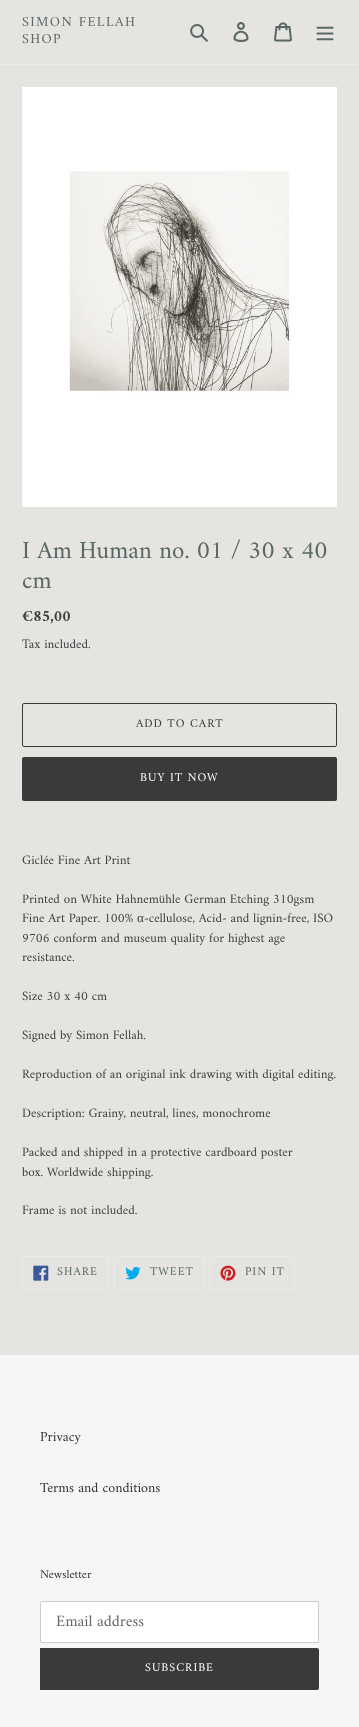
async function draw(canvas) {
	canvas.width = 359;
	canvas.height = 1727;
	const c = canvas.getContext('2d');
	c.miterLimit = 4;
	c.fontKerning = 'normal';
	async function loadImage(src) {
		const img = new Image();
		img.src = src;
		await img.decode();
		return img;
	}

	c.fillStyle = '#e6e4e0';
	c.fillRect(0, 0, 359, 1727);
	c.fillStyle = '#ebebeb';
	c.fillRect(0, 64, 359, 1);
	c.letterSpacing = '1.4px';
	c.font = '14px Amiri';
	c.fillStyle = '#596865';
	c.fillText('SIMON FELLAH', 22, 26);
	c.fillText('SHOP', 22, 43);
	c.drawImage(await loadImage('img1.png'), 190, 24, 18, 18);
	c.drawImage(await loadImage('img2.png'), 233, 22, 16, 20);
	c.drawImage(await loadImage('img3.png'), 274, 22, 18, 20);
	c.drawImage(await loadImage('img4.png'), 316, 26, 18, 15);
	c.drawImage(await loadImage('img5.png'), 22, 87, 315, 420);
	c.letterSpacing = '0px';
	c.font = '25px Amiri';
	c.fillText('I Am Human no. 01 / 30 x 40', 22, 558);
	c.fillText('cm', 22, 588);
	c.font = 'bold 16px Amiri';
	c.fillStyle = '#3b4140';
	c.fillText('€85,00', 22, 621);
	c.font = '13px Amiri';
	c.fillText('Tax included.', 22, 648);
	c.beginPath();
	c.roundRect(22.5, 703.5, 314, 43, 1.5);
	c.strokeStyle = '#3a3a3a';
	c.stroke();
	c.letterSpacing = '1px';
	c.font = '12px Amiri';
	c.fillStyle = '#3a3a3a';
	c.fillText('ADD TO CART', 136, 727);
	c.beginPath();
	c.roundRect(22, 757, 315, 44, 2);
	c.fill();
	c.fillStyle = '#fff';
	c.fillText('BUY IT NOW', 140, 781);
	c.letterSpacing = '0px';
	c.font = '13px Amiri';
	c.fillStyle = '#3b4140';
	for (const [text, x, y] of [
		['Giclée Fine Art Print', 22, 864],
		['Printed on White Hahnemühle German Etching 310gsm', 22, 903],
		['Fine Art Paper. 100%', 22, 922],
	]) {
		c.fillText(text, x, y);
	}
	c.font = '13px Liberation Serif';
	c.fillText('α', 137, 922);
	c.font = '13px Amiri';
	for (const [text, x, y] of [
		['-cellulose, Acid- and lignin-free, ISO', 144, 922],
		['9706 conform and museum quality for highest age', 22, 942],
		['resistance.', 22, 961],
		['Size 30 x 40 cm', 22, 1000],
		['Signed by Simon Fellah.', 22, 1039],
		['Reproduction of an original ink drawing with digital editing.', 22, 1078],
		['Description: Grainy, neutral, lines, monochrome', 22, 1117],
		['Packed and shipped in a protective cardboard poster', 22, 1156],
		['box. Worldwide shipping.', 22, 1176],
		['Frame is not included.', 22, 1214],
	]) {
		c.fillText(text, x, y);
	}
	c.beginPath();
	c.roundRect(22.5, 1256.5, 86, 33, 1.5);
	c.strokeStyle = '#ebebeb';
	c.stroke();
	c.drawImage(await loadImage('img6.png'), 33, 1265, 16, 16);
	c.letterSpacing = '1px';
	c.font = '12px Amiri';
	c.fillStyle = '#596865';
	c.fillText('SHARE', 57, 1275);
	c.beginPath();
	c.roundRect(114.5, 1256.5, 89, 33, 1.5);
	c.stroke();
	c.drawImage(await loadImage('img7.png'), 125, 1266, 16, 14);
	c.fillText('TWEET', 150, 1275);
	c.beginPath();
	c.roundRect(209.5, 1256.5, 85, 33, 1.5);
	c.stroke();
	c.drawImage(await loadImage('img8.png'), 220, 1265, 16, 16);
	c.fillText('PIN IT', 245, 1275);
	c.fillStyle = '#f6f6f6';
	c.fillRect(0, 1355, 359, 372);
	c.letterSpacing = '0px';
	c.font = '14px Amiri';
	c.fillStyle = '#333232';
	c.fillText('Privacy', 40, 1441);
	c.fillText('Terms and conditions', 40, 1492);
	c.font = '12px Amiri';
	c.fillText('Newsletter', 40, 1578);
	c.fillStyle = '#fff';
	c.beginPath();
	c.roundRect(40.5, 1601.5, 278, 41, [1.5, 0, 0, 1.5]);
	c.fill();
	c.strokeStyle = '#ccc';
	c.stroke();
	c.font = '16px Amiri';
	c.fillStyle = '#666';
	c.fillText('Email address', 56, 1626);
	c.fillStyle = '#3a3a3a';
	c.beginPath();
	c.roundRect(40, 1648, 279, 42, [0, 2, 2, 0]);
	c.fill();
	c.letterSpacing = '1px';
	c.font = '12px Amiri';
	c.fillStyle = '#fff';
	c.fillText('SUBSCRIBE', 145, 1671);
}

draw(document.querySelector('canvas'));
